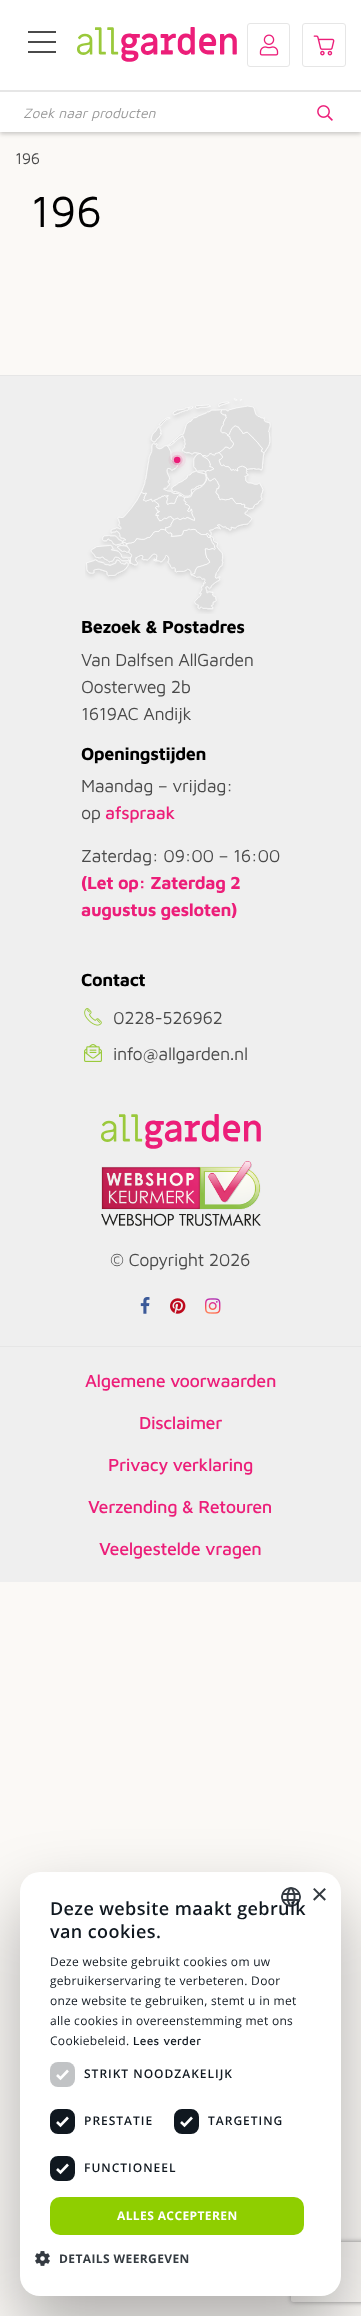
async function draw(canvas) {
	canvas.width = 361;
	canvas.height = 2316;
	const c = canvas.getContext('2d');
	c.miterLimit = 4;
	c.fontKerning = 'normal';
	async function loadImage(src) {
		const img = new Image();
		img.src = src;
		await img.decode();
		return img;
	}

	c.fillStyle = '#fbf9f6';
	c.fillRect(0, 0, 361, 2316);
	c.fillStyle = '#00000033';
	c.filter = 'blur(2px)';
	c.beginPath();
	c.rect(0, 2, 361, 132);
	c.fill();
	c.filter = 'none';
	for (const [x, y, w, h, color] of [
		[0, 0, 361, 90, '#fff'],
		[0, 90, 361, 2, '#e6e6e6'],
		[28, 31, 28, 2, '#4a4a4a'],
		[28, 41, 28, 2, '#4a4a4a'],
		[28, 51, 28, 2, '#4a4a4a'],
	]) {
		c.fillStyle = color;
		c.fillRect(x, y, w, h);
	}
	c.drawImage(await loadImage('img1.png'), 77, 27, 160, 35);
	c.beginPath();
	c.roundRect(247.5, 23.5, 42, 43, 2.5);
	c.strokeStyle = '#e6e6e6';
	c.stroke();
	c.drawImage(await loadImage('img2.png'), 259, 34, 20, 22);
	c.beginPath();
	c.roundRect(302.5, 23.5, 43, 43, 2.5);
	c.stroke();
	c.drawImage(await loadImage('img3.png'), 313, 35, 22, 21);
	c.fillStyle = '#fff';
	c.fillRect(0, 92, 361, 40);
	c.font = 'italic 14px Maven Pro';
	c.fillStyle = '#999';
	c.fillText('Zoek naar producten', 23, 118);
	c.drawImage(await loadImage('img4.png'), 317, 105, 16, 16);
	c.letterSpacing = '-0.4px';
	c.font = '16px Maven Pro';
	c.fillStyle = '#4a4a4a';
	c.fillText('196', 15, 164);
	c.font = '45px Maven Pro';
	c.fillStyle = '#000';
	c.fillText('196', 30, 227);
	c.fillStyle = '#efefef';
	c.fillRect(0, 376, 361, 970);
	c.fillStyle = '#e6e6e6';
	c.fillRect(0, 375, 361, 1);
	c.drawImage(await loadImage('img5.png'), 85, 398, 187, 216);
	c.font = 'bold 18px Maven Pro';
	c.fillStyle = '#000';
	c.fillText('Bezoek & Postadres', 81, 633);
	c.font = '18px Maven Pro';
	c.fillStyle = '#4a4a4a';
	for (const [text, x, y] of [
		['Van Dalfsen AllGarden', 81, 666],
		['Oosterweg 2b', 81, 693],
		['1619AC Andijk', 81, 720],
	]) {
		c.fillText(text, x, y);
	}
	c.font = 'bold 18px Maven Pro';
	c.fillStyle = '#000';
	c.fillText('Openingstijden', 81, 760);
	c.font = '18px Maven Pro';
	c.fillStyle = '#4a4a4a';
	c.fillText('Maandag – vrijdag:', 81, 792);
	c.fillText('op', 81, 819);
	c.font = '500 18px Maven Pro';
	c.fillStyle = '#ec1e79';
	c.fillText('afspraak', 105, 819);
	c.font = '18px Maven Pro';
	c.fillStyle = '#4a4a4a';
	c.fillText('Zaterdag: 09:00 – 16:00', 81, 862);
	c.font = 'bold 18px Maven Pro';
	c.fillStyle = '#ec1e79';
	c.fillText('(Let op: Zaterdag 2', 81, 889);
	c.fillText('augustus gesloten)', 81, 916);
	c.fillStyle = '#000';
	c.fillText('Contact', 81, 986);
	c.drawImage(await loadImage('img6.png'), 84, 1008, 18, 18);
	c.font = '18px Maven Pro';
	c.fillStyle = '#4a4a4a';
	c.fillText('0228-526962', 113, 1024);
	c.drawImage(await loadImage('img7.png'), 84, 1044, 18, 18);
	c.fillText('info@allgarden.nl', 113, 1060);
	c.drawImage(await loadImage('img8.png'), 101, 1114, 160, 35);
	c.drawImage(await loadImage('img9.png'), 101, 1161, 160, 65);
	c.fillText('© Copyright 2026', 110, 1266);
	c.drawImage(await loadImage('img10.png'), 140, 1297, 10, 17);
	c.drawImage(await loadImage('img11.png'), 170, 1298, 16, 16);
	c.drawImage(await loadImage('img12.png'), 205, 1298, 16, 16);
	c.fillStyle = '#efefef';
	c.fillRect(0, 1347, 361, 235);
	c.fillStyle = '#e6e6e6';
	c.fillRect(0, 1346, 361, 1);
	c.font = '500 18px Maven Pro';
	c.fillStyle = '#ec1e79';
	for (const [text, x, y] of [
		['Algemene voorwaarden', 85, 1387],
		['Disclaimer', 139, 1429],
		['Privacy verklaring', 108, 1471],
		['Verzending & Retouren', 88, 1513],
		['Veelgestelde vragen', 99, 1555],
	]) {
		c.fillText(text, x, y);
	}
	c.fillStyle = '#0000004d';
	c.filter = 'blur(34px)';
	c.beginPath();
	c.roundRect(20, 1904, 321, 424, 20);
	c.fill();
	c.filter = 'none';
	c.save();
	c.beginPath();
	c.moveTo(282, 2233);
	c.lineTo(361, 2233);
	c.lineTo(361, 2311);
	c.lineTo(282, 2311);
	c.closePath();
	c.moveTo(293, 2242);
	c.lineTo(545, 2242);
	c.bezierCurveTo(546, 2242, 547, 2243, 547, 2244);
	c.lineTo(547, 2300);
	c.bezierCurveTo(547, 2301, 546, 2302, 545, 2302);
	c.lineTo(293, 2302);
	c.bezierCurveTo(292, 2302, 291, 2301, 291, 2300);
	c.lineTo(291, 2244);
	c.bezierCurveTo(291, 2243, 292, 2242, 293, 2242);
	c.closePath();
	c.clip('evenodd');
	c.fillStyle = '#808080';
	c.filter = 'blur(2.5px)';
	c.beginPath();
	c.roundRect(291, 2242, 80, 60, 2);
	c.fill();
	c.filter = 'none';
	c.restore();
	c.fillStyle = '#fff';
	c.beginPath();
	c.roundRect(20, 1872, 321, 424, 20);
	c.fill();
	c.drawImage(await loadImage('img13.png'), 281, 1887, 20, 20);
	c.letterSpacing = '0px';
	c.font = '29px Liberation Sans';
	c.fillStyle = '#343b41';
	c.fillText('×', 311, 1904);
	c.letterSpacing = '0.4px';
	c.font = '600 18px Open Sans';
	c.fillStyle = '#101820';
	c.fillText('Deze website maakt gebruik', 50, 1915);
	c.fillText('van cookies.', 50, 1938);
	c.letterSpacing = '0.3px';
	c.font = '12px Open Sans';
	for (const [text, x, y] of [
		['Deze website gebruikt cookies om uw', 50, 1966],
		['gebruikerservaring te verbeteren. Door', 50, 1985],
		['onze website te gebruiken, stemt u in met', 50, 2005],
		['alle cookies in overeenstemming met ons', 50, 2025],
		['Cookiebeleid.', 50, 2045],
	]) {
		c.fillText(text, x, y);
	}
	c.font = '500 12px Maven Pro';
	c.fillText('Lees verder', 133, 2045);
	c.fillStyle = '#c1c3c5';
	c.beginPath();
	c.roundRect(50, 2062, 25, 25, 8);
	c.fill();
	c.beginPath();
	c.moveTo(57, 2075);
	c.lineTo(60.5, 2078.5);
	c.lineTo(68, 2070.5);
	c.strokeStyle = '#fff';
	c.lineWidth = 2.6;
	c.stroke();
	c.letterSpacing = '1px';
	c.font = '600 12px Open Sans';
	c.fillStyle = '#101820';
	c.fillText('STRIKT NOODZAKELIJK', 84, 2078);
	c.beginPath();
	c.roundRect(51, 2110, 23, 23, 7);
	c.fill();
	c.strokeStyle = '#101820';
	c.lineWidth = 2;
	c.stroke();
	c.beginPath();
	c.moveTo(57, 2122);
	c.lineTo(60.5, 2125.5);
	c.lineTo(68, 2117.5);
	c.strokeStyle = '#fff';
	c.lineWidth = 2.6;
	c.stroke();
	c.fillText('PRESTATIE', 84, 2125);
	c.beginPath();
	c.roundRect(175, 2110, 23, 23, 7);
	c.fill();
	c.strokeStyle = '#101820';
	c.lineWidth = 2;
	c.stroke();
	c.beginPath();
	c.moveTo(181, 2122);
	c.lineTo(184.5, 2125.5);
	c.lineTo(192, 2117.5);
	c.strokeStyle = '#fff';
	c.lineWidth = 2.6;
	c.stroke();
	c.fillText('TARGETING', 208, 2125);
	c.beginPath();
	c.roundRect(51, 2157, 23, 23, 7);
	c.fill();
	c.strokeStyle = '#101820';
	c.lineWidth = 2;
	c.stroke();
	c.beginPath();
	c.moveTo(57, 2169);
	c.lineTo(60.5, 2172.5);
	c.lineTo(68, 2164.5);
	c.strokeStyle = '#fff';
	c.lineWidth = 2.6;
	c.stroke();
	c.fillText('FUNCTIONEEL', 84, 2172);
	c.fillStyle = '#8fce00';
	c.beginPath();
	c.roundRect(50, 2197, 254, 38, 10);
	c.fill();
	c.letterSpacing = '0.4px';
	c.font = 'bold 12px Open Sans';
	c.fillStyle = '#fff';
	c.fillText('ALLES ACCEPTEREN', 117, 2220);
	c.drawImage(await loadImage('img14.png'), 35, 2251, 15, 15);
	c.fillStyle = '#343b41';
	c.fillText('DETAILS WEERGEVEN', 59, 2263);
}

draw(document.querySelector('canvas'));
